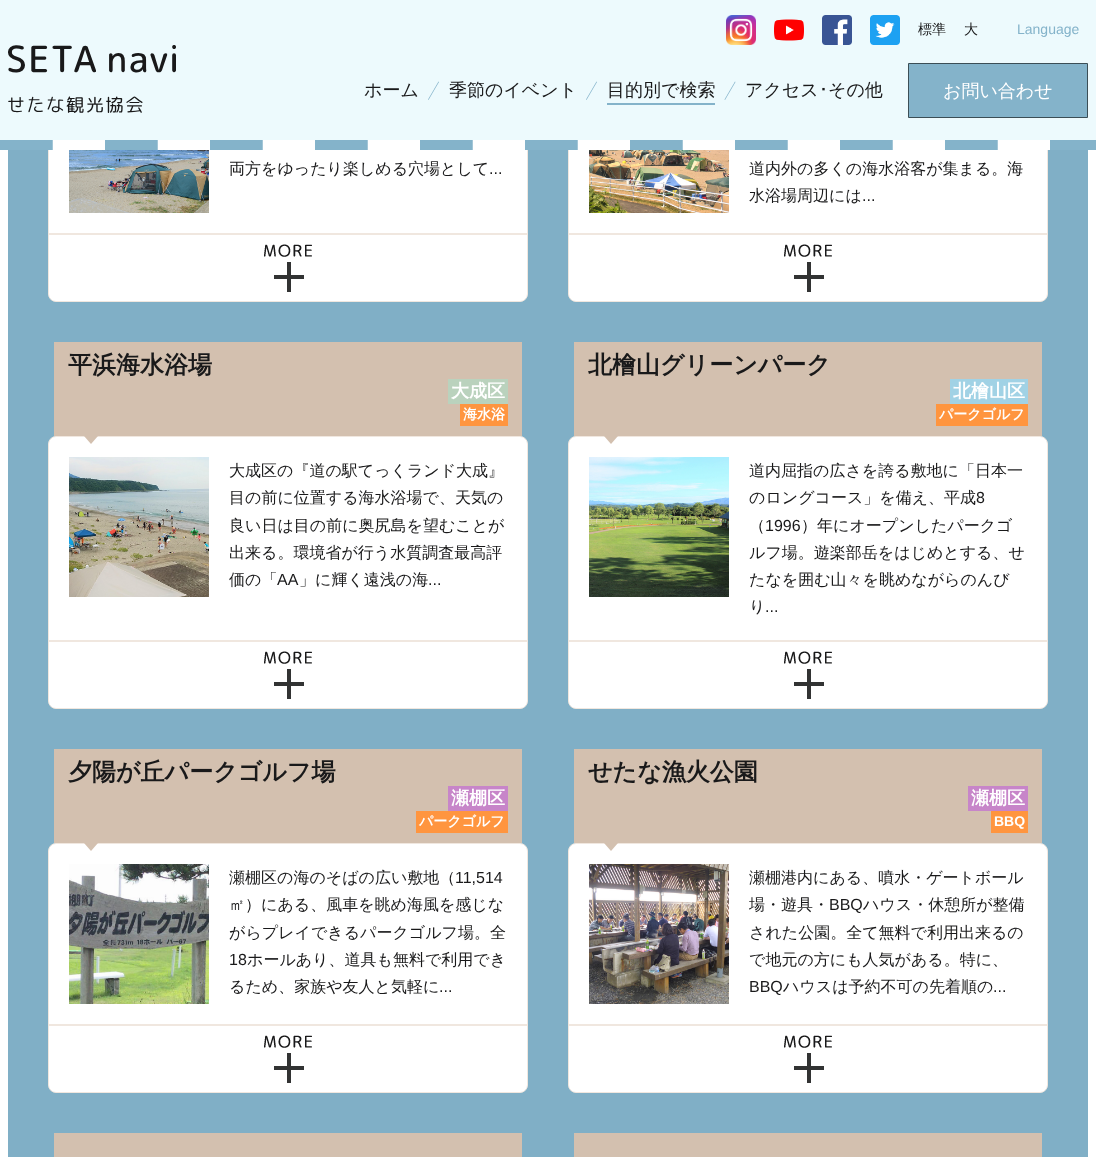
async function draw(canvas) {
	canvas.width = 1096;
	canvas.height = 1157;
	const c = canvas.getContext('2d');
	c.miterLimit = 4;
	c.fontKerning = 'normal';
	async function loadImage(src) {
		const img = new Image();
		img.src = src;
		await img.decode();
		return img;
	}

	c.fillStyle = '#fff';
	c.fillRect(0, 0, 1096, 1157);
	c.fillStyle = '#80afc6';
	c.fillRect(8, 150, 1080, 1007);
	c.fillStyle = '#fff';
	c.beginPath();
	c.roundRect(48.5, 52.5, 479, 249, 7.5);
	c.fill();
	c.strokeStyle = '#f0e7df';
	c.stroke();
	c.beginPath();
	c.roundRect(568.5, 52.5, 479, 249, 7.5);
	c.fill();
	c.stroke();
	c.fillStyle = '#edfafd';
	c.fillRect(0, 0, 1096, 140);
	c.drawImage(await loadImage('img1.png'), 726, 15, 30, 30);
	c.drawImage(await loadImage('img2.png'), 774, 19, 30, 22);
	c.drawImage(await loadImage('img3.png'), 822, 15, 30, 30);
	c.drawImage(await loadImage('img4.png'), 870, 15, 30, 30);
	c.font = '500 14px WenQuanYi Zen Hei';
	c.fillStyle = '#19191a';
	c.fillText('標準', 918, 34);
	c.fillText('大', 964, 34);
	c.font = '14px Liberation Sans';
	c.fillStyle = '#84b3ca';
	c.fillText('Language', 1017, 34);
	c.drawImage(await loadImage('img5.png'), 8, 45, 168, 68);
	c.font = '500 18px WenQuanYi Zen Hei';
	c.fillStyle = '#19191a';
	c.fillText('ホーム', 364, 96);
	c.fillStyle = '#84b3ca';
	c.beginPath();
	c.moveTo(438.5, 81.5);
	c.lineTo(439, 82);
	c.lineTo(428.5, 100);
	c.lineTo(428, 99.5);
	c.closePath();
	c.fill();
	c.fillStyle = '#19191a';
	c.fillText('季節のイベント', 449, 96);
	c.fillStyle = '#84b3ca';
	c.beginPath();
	c.moveTo(596.5, 81.5);
	c.lineTo(597, 82);
	c.lineTo(586.5, 100);
	c.lineTo(586, 99.5);
	c.closePath();
	c.fill();
	c.fillStyle = '#19191a';
	c.fillText('目的別で検索', 607, 96);
	c.fillStyle = '#84b3ca';
	c.fillRect(607, 103, 108, 2);
	c.beginPath();
	c.moveTo(735, 81.5);
	c.lineTo(735.5, 82);
	c.lineTo(725, 100);
	c.lineTo(724.5, 99.5);
	c.closePath();
	c.fill();
	c.fillStyle = '#19191a';
	c.fillText('アクセス', 745, 96);
	c.font = '18px IPAPGothic';
	c.fillText('･', 819, 96);
	c.font = '500 18px WenQuanYi Zen Hei';
	c.fillText('その他', 828, 96);
	c.fillStyle = '#84b3ca';
	c.beginPath();
	c.rect(908.5, 63.5, 179, 54);
	c.fill();
	c.strokeStyle = '#3b4e56';
	c.stroke();
	c.fillStyle = '#fff';
	c.fillText('お問い合わせ', 943, 97);
	c.fillRect(527, 140, 521, 10);
	c.drawImage(await loadImage('img6.png'), 0, 140, 1096, 10);
	c.fillStyle = '#f0e7df';
	c.fillRect(49, 233, 478, 2);
	c.drawImage(await loadImage('img7.png'), 69, 150, 140, 63);
	c.font = '500 16px WenQuanYi Zen Hei';
	c.fillStyle = '#19191a';
	c.fillText('両方をゆったり楽しめる穴場として', 229, 174);
	c.font = '16px Liberation Sans';
	c.fillText('...', 489, 174);
	c.drawImage(await loadImage('img8.png'), 264, 244, 48, 48);
	c.fillStyle = '#f0e7df';
	c.fillRect(569, 233, 478, 2);
	c.drawImage(await loadImage('img9.png'), 589, 150, 140, 63);
	c.font = '500 16px WenQuanYi Zen Hei';
	c.fillStyle = '#19191a';
	c.fillText('道内外の多くの海水浴客が集まる。海', 749, 174);
	c.fillText('水浴場周辺には', 749, 201);
	c.font = '16px Liberation Sans';
	c.fillText('...', 862, 201);
	c.drawImage(await loadImage('img8.png'), 784, 244, 48, 48);
	c.fillStyle = '#d3c0af';
	c.fillRect(54, 342, 468, 94);
	c.font = 'bold 24px WenQuanYi Zen Hei';
	c.fillStyle = '#19191a';
	c.fillText('平浜海水浴場', 68, 373);
	c.fillStyle = '#bad2bd';
	c.fillRect(448, 379, 60, 25);
	c.font = 'bold 18px WenQuanYi Zen Hei';
	c.fillStyle = '#fff';
	c.fillText('大成区', 451, 397);
	c.fillStyle = '#ff953f';
	c.fillRect(460, 404, 48, 22);
	c.font = 'bold 14px WenQuanYi Zen Hei';
	c.fillStyle = '#fff';
	c.fillText('海水浴', 463, 419);
	c.beginPath();
	c.roundRect(48.5, 436.5, 479, 272, 7.5);
	c.fill();
	c.strokeStyle = '#f0e7df';
	c.stroke();
	c.fillStyle = '#d3c0af';
	c.beginPath();
	c.moveTo(84, 436);
	c.lineTo(98, 436);
	c.lineTo(91, 444);
	c.closePath();
	c.fill();
	c.fillStyle = '#f0e7df';
	c.fillRect(49, 640, 478, 2);
	c.drawImage(await loadImage('img10.png'), 69, 457, 140, 140);
	c.font = '500 16px WenQuanYi Zen Hei';
	c.fillStyle = '#19191a';
	for (const [text, x, y] of [
		['大成区の『道の駅てっくランド大成』', 229, 476],
		['目の前に位置する海水浴場で、天気の', 229, 503],
		['良い日は目の前に奥尻島を望むことが', 229, 531],
		['出来る。環境省が行う水質調査最高評', 229, 558],
		['価の「', 229, 585],
	]) {
		c.fillText(text, x, y);
	}
	c.font = '16px Liberation Sans';
	c.fillText('AA', 277, 585);
	c.font = '500 16px WenQuanYi Zen Hei';
	c.fillText('」に輝く遠浅の海', 299, 585);
	c.font = '16px Liberation Sans';
	c.fillText('...', 428, 585);
	c.drawImage(await loadImage('img8.png'), 264, 651, 48, 48);
	c.fillStyle = '#d3c0af';
	c.fillRect(574, 342, 468, 94);
	c.font = 'bold 24px WenQuanYi Zen Hei';
	c.fillStyle = '#19191a';
	c.fillText('北檜山グリーンパーク', 588, 373);
	c.fillStyle = '#a1d2e5';
	c.fillRect(950, 379, 78, 25);
	c.font = 'bold 18px WenQuanYi Zen Hei';
	c.fillStyle = '#fff';
	c.fillText('北檜山区', 953, 397);
	c.fillStyle = '#ff953f';
	c.fillRect(936, 404, 92, 22);
	c.font = 'bold 14px WenQuanYi Zen Hei';
	c.fillStyle = '#fff';
	c.fillText('パークゴルフ', 939, 419);
	c.beginPath();
	c.roundRect(568.5, 436.5, 479, 272, 7.5);
	c.fill();
	c.stroke();
	c.fillStyle = '#d3c0af';
	c.beginPath();
	c.moveTo(604, 436);
	c.lineTo(618, 436);
	c.lineTo(611, 444);
	c.closePath();
	c.fill();
	c.fillStyle = '#f0e7df';
	c.fillRect(569, 640, 478, 2);
	c.drawImage(await loadImage('img11.png'), 589, 457, 140, 140);
	c.font = '500 16px WenQuanYi Zen Hei';
	c.fillStyle = '#19191a';
	c.fillText('道内屈指の広さを誇る敷地に「日本一', 749, 476);
	c.fillText('のロングコース」を備え、平成', 749, 503);
	c.font = '16px Liberation Sans';
	c.fillText('8', 976, 503);
	c.font = '500 16px WenQuanYi Zen Hei';
	c.fillText('（', 749, 531);
	c.font = '16px Liberation Sans';
	c.fillText('1996', 765, 531);
	c.font = '500 16px WenQuanYi Zen Hei';
	for (const [text, x, y] of [
		['）年にオープンしたパークゴ', 801, 531],
		['ルフ場。遊楽部岳をはじめとする、せ', 749, 558],
		['たなを囲む山々を眺めながらのんび', 749, 585],
		['り', 749, 612],
	]) {
		c.fillText(text, x, y);
	}
	c.font = '16px Liberation Sans';
	c.fillText('...', 765, 612);
	c.drawImage(await loadImage('img8.png'), 784, 651, 48, 48);
	c.fillStyle = '#d3c0af';
	c.fillRect(54, 749, 468, 94);
	c.font = 'bold 24px WenQuanYi Zen Hei';
	c.fillStyle = '#19191a';
	c.fillText('夕陽が丘パークゴルフ場', 68, 780);
	c.fillStyle = '#c785c9';
	c.fillRect(448, 786, 60, 25);
	c.font = 'bold 18px WenQuanYi Zen Hei';
	c.fillStyle = '#fff';
	c.fillText('瀬棚区', 451, 804);
	c.fillStyle = '#ff953f';
	c.fillRect(416, 811, 92, 22);
	c.font = 'bold 14px WenQuanYi Zen Hei';
	c.fillStyle = '#fff';
	c.fillText('パークゴルフ', 419, 826);
	c.beginPath();
	c.roundRect(48.5, 843.5, 479, 249, 7.5);
	c.fill();
	c.stroke();
	c.fillStyle = '#d3c0af';
	c.beginPath();
	c.moveTo(84, 843);
	c.lineTo(98, 843);
	c.lineTo(91, 851);
	c.closePath();
	c.fill();
	c.fillStyle = '#f0e7df';
	c.fillRect(49, 1024, 478, 2);
	c.drawImage(await loadImage('img12.png'), 69, 864, 140, 140);
	c.font = '500 16px WenQuanYi Zen Hei';
	c.fillStyle = '#19191a';
	c.fillText('瀬棚区の海のそばの広い敷地（', 229, 883);
	c.font = '16px Liberation Sans';
	c.fillText('11,514', 455, 883);
	c.font = '500 16px WenQuanYi Zen Hei';
	c.fillText('㎡）にある、風車を眺め海風を感じな', 229, 910);
	c.fillText('がらプレイできるパークゴルフ場。全', 229, 938);
	c.font = '16px Liberation Sans';
	c.fillText('18', 229, 965);
	c.font = '500 16px WenQuanYi Zen Hei';
	c.fillText('ホールあり、道具も無料で利用でき', 247, 965);
	c.fillText('るため、家族や友人と気軽に', 229, 992);
	c.font = '16px Liberation Sans';
	c.fillText('...', 439, 992);
	c.drawImage(await loadImage('img8.png'), 264, 1035, 48, 48);
	c.fillStyle = '#d3c0af';
	c.fillRect(574, 749, 468, 94);
	c.font = 'bold 24px WenQuanYi Zen Hei';
	c.fillStyle = '#19191a';
	c.fillText('せたな漁火公園', 588, 780);
	c.fillStyle = '#c785c9';
	c.fillRect(968, 786, 60, 25);
	c.font = 'bold 18px WenQuanYi Zen Hei';
	c.fillStyle = '#fff';
	c.fillText('瀬棚区', 971, 804);
	c.fillStyle = '#ff953f';
	c.fillRect(991, 811, 37, 22);
	c.font = 'bold 14px Liberation Sans';
	c.fillStyle = '#fff';
	c.fillText('BBQ', 994, 826);
	c.beginPath();
	c.roundRect(568.5, 843.5, 479, 249, 7.5);
	c.fill();
	c.stroke();
	c.fillStyle = '#d3c0af';
	c.beginPath();
	c.moveTo(604, 843);
	c.lineTo(618, 843);
	c.lineTo(611, 851);
	c.closePath();
	c.fill();
	c.fillStyle = '#f0e7df';
	c.fillRect(569, 1024, 478, 2);
	c.drawImage(await loadImage('img13.png'), 589, 864, 140, 140);
	c.font = '500 16px WenQuanYi Zen Hei';
	c.fillStyle = '#19191a';
	c.fillText('瀬棚港内にある、噴水・ゲートボール', 749, 883);
	c.fillText('場・遊具・', 749, 910);
	c.font = '16px Liberation Sans';
	c.fillText('BBQ', 829, 910);
	c.font = '500 16px WenQuanYi Zen Hei';
	for (const [text, x, y] of [
		['ハウス・休憩所が整備', 863, 910],
		['された公園。全て無料で利用出来るの', 749, 938],
		['で地元の方にも人気がある。特に、', 749, 965],
	]) {
		c.fillText(text, x, y);
	}
	c.font = '16px Liberation Sans';
	c.fillText('BBQ', 749, 992);
	c.font = '500 16px WenQuanYi Zen Hei';
	c.fillText('ハウスは予約不可の先着順の', 783, 992);
	c.font = '16px Liberation Sans';
	c.fillText('...', 993, 992);
	c.drawImage(await loadImage('img8.png'), 784, 1035, 48, 48);
	c.fillStyle = '#d3c0af';
	c.fillRect(54, 1133, 468, 24);
	c.fillRect(574, 1133, 468, 24);
}

draw(document.querySelector('canvas'));
